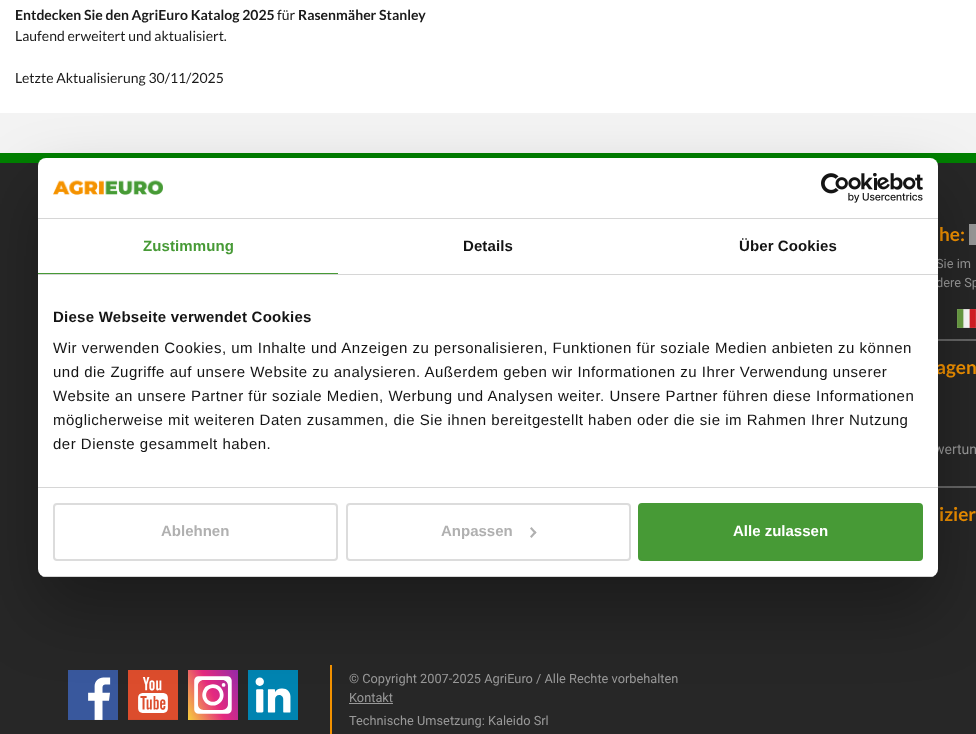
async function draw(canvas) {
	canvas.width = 976;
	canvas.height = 734;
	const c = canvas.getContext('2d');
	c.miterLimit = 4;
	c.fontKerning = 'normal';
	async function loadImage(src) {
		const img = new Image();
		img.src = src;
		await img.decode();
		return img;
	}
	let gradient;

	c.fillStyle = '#f3f3f3';
	c.fillRect(0, 0, 976, 734);
	c.fillStyle = '#fff';
	c.fillRect(0, 0, 976, 113);
	c.font = 'bold 14px Lato';
	c.fillStyle = '#1a1a1a';
	c.fillText('Entdecken Sie den AgriEuro Katalog 2025', 15, 20);
	c.font = '14px Lato';
	c.fillText('für', 277, 20);
	c.font = 'bold 14px Lato';
	c.fillText('Rasenmäher Stanley', 298, 20);
	c.font = '14px Lato';
	c.fillText('Laufend erweitert und aktualisiert.', 15, 41);
	c.fillText('Letzte Aktualisierung 30/11/2025', 15, 83);
	c.fillStyle = '#008000';
	c.fillRect(0, 153, 976, 10);
	c.fillStyle = '#272727';
	c.fillRect(0, 163, 976, 571);
	c.font = 'bold 19px Lato';
	c.fillStyle = '#f39200';
	c.fillText('he:', 939, 241);
	c.fillStyle = '#999';
	c.fillRect(969, 224, 7, 21);
	c.font = '12.8px Roboto';
	c.fillText('Sie im', 936, 268);
	c.fillText('dere Sp', 936, 287);
	c.drawImage(await loadImage('img1.png'), 957, 309, 19, 19);
	c.fillStyle = '#666';
	c.fillRect(938, 339, 38, 2);
	c.font = 'bold 19px Lato';
	c.fillStyle = '#f39200';
	c.fillText('agen', 936, 374);
	c.font = '14px Roboto';
	c.fillStyle = '#999';
	c.fillText('wertun', 934, 454);
	c.fillStyle = '#666';
	c.fillRect(938, 486, 38, 2);
	c.font = 'bold 19px Lato';
	c.fillStyle = '#f39200';
	c.fillText('izier', 939, 521);
	c.drawImage(await loadImage('img2.png'), 68, 670, 50, 50);
	c.drawImage(await loadImage('img3.png'), 128, 670, 50, 50);
	gradient = c.createLinearGradient(243, 681, 183, 709);
	gradient.addColorStop(0, '#972aaa');
	gradient.addColorStop(0.5, '#e52a7f');
	gradient.addColorStop(1, '#f7cf3c');
	c.fillStyle = gradient;
	c.fillRect(188, 670, 50, 50);
	c.drawImage(await loadImage('img4.png'), 194, 676, 38, 38);
	c.drawImage(await loadImage('img5.png'), 248, 670, 50, 50);
	c.fillStyle = '#f39200';
	c.fillRect(330, 665, 2, 69);
	c.font = '12.8px Roboto';
	c.fillStyle = '#999';
	c.fillText('© Copyright 2007-2025 AgriEuro / Alle Rechte vorbehalten', 349, 683);
	c.fillText('Kontakt', 349, 702);
	c.fillRect(349, 703, 44, 1);
	c.fillText('Technische Umsetzung: Kaleido Srl', 349, 725);
	c.fillStyle = '#0000004d';
	c.filter = 'blur(34px)';
	c.beginPath();
	c.roundRect(38, 190, 900, 419, 8);
	c.fill();
	c.filter = 'none';
	c.fillStyle = '#fff';
	c.beginPath();
	c.roundRect(38, 158, 900, 419, 8);
	c.fill();
	c.fillStyle = '#d6d6d6';
	c.fillRect(38, 218, 900, 1);
	c.drawImage(await loadImage('img6.png'), 53, 180, 110, 15);
	c.drawImage(await loadImage('img7.png'), 821, 173, 102, 30);
	c.fillRect(38, 274, 900, 1);
	c.fillStyle = '#479a36';
	c.fillRect(38, 273, 300, 1);
	c.letterSpacing = '0.1px';
	c.font = 'bold 15px Liberation Sans';
	c.fillText('Zustimmung', 143, 251);
	c.fillStyle = '#141414';
	c.fillText('Details', 463, 251);
	c.fillText('Über Cookies', 739, 251);
	c.fillStyle = '#d6d6d6';
	c.fillRect(38, 487, 900, 1);
	c.letterSpacing = '0.25px';
	c.fillStyle = '#141414';
	c.fillText('Diese Webseite verwendet Cookies', 53, 322);
	c.letterSpacing = '0.5px';
	c.font = '15px Liberation Sans';
	for (const [text, x, y] of [
		['Wir verwenden Cookies, um Inhalte und Anzeigen zu personalisieren, Funktionen für soziale Medien anbieten zu können', 53, 353],
		['und die Zugriffe auf unsere Website zu analysieren. Außerdem geben wir Informationen zu Ihrer Verwendung unserer', 53, 377],
		['Website an unsere Partner für soziale Medien, Werbung und Analysen weiter. Unsere Partner führen diese Informationen', 53, 401],
		['möglicherweise mit weiteren Daten zusammen, die Sie ihnen bereitgestellt haben oder die sie im Rahmen Ihrer Nutzung', 53, 425],
		['der Dienste gesammelt haben.', 53, 449],
	]) {
		c.fillText(text, x, y);
	}
	c.save();
	c.beginPath();
	c.roundRect(38, 158, 900, 419, 8);
	c.clip();
	c.fillStyle = '#d6d6d6';
	c.fillRect(38, 576, 900, 1);
	c.restore();
	c.beginPath();
	c.roundRect(54, 504, 283, 56, 3);
	c.strokeStyle = '#dcdcdc';
	c.lineWidth = 2;
	c.stroke();
	c.letterSpacing = '0px';
	c.font = 'bold 15px Liberation Sans';
	c.fillStyle = '#b0b0b0';
	c.fillText('Ablehnen', 161, 536);
	c.beginPath();
	c.roundRect(347, 504, 283, 56, 3);
	c.stroke();
	c.fillText('Anpassen', 441, 536);
	c.beginPath();
	c.moveTo(531.5, 527);
	c.lineTo(536.5, 532.5);
	c.lineTo(535, 534);
	c.lineTo(530, 528.5);
	c.closePath();
	c.fill();
	c.beginPath();
	c.moveTo(535, 531);
	c.lineTo(536.5, 532.5);
	c.lineTo(531.5, 538);
	c.lineTo(530, 536.5);
	c.closePath();
	c.fill();
	c.fillStyle = '#479a36';
	c.beginPath();
	c.roundRect(639, 504, 283, 56, 3);
	c.fill();
	c.strokeStyle = '#479a36';
	c.stroke();
	c.fillStyle = '#fff';
	c.fillText('Alle zulassen', 733, 536);
}

draw(document.querySelector('canvas'));
